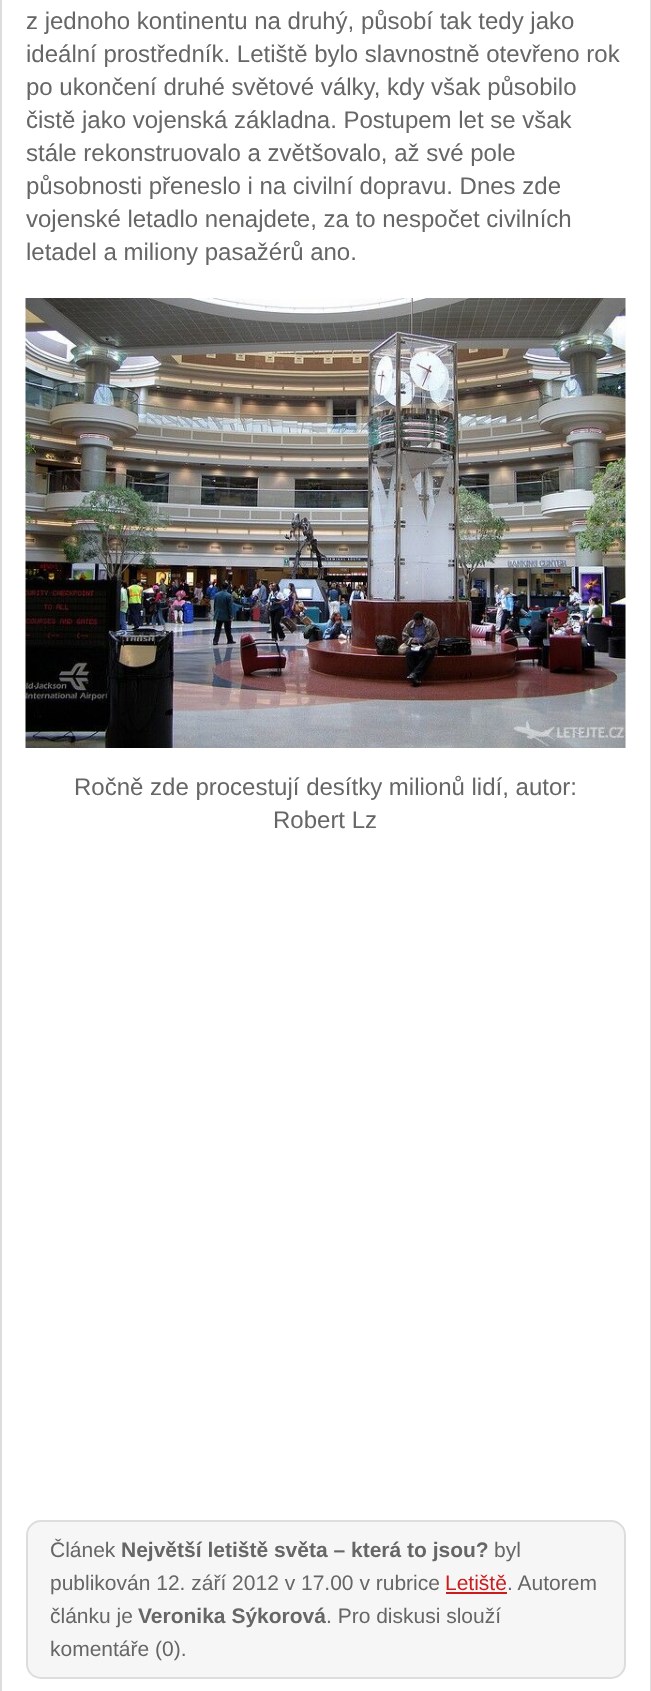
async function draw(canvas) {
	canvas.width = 651;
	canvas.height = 1691;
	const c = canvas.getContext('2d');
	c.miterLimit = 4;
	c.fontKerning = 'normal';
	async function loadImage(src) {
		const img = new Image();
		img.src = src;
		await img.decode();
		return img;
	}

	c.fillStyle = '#ddd';
	c.fillRect(0, 0, 651, 1691);
	c.fillStyle = '#fff';
	c.fillRect(2, 0, 648, 1691);
	c.font = '24px Liberation Sans';
	c.fillStyle = '#666';
	for (const [text, x, y] of [
		['z jednoho kontinentu na druhý, působí tak tedy jako', 26, 29],
		['ideální prostředník. Letiště bylo slavnostně otevřeno rok', 26, 62],
		['po ukončení druhé světové války, kdy však působilo', 26, 95],
		['čistě jako vojenská základna. Postupem let se však', 26, 128],
		['stále rekonstruovalo a zvětšovalo, až své pole', 26, 161],
		['působnosti přeneslo i na civilní dopravu. Dnes zde', 26, 194],
		['vojenské letadlo nenajdete, za to nespočet civilních', 26, 227],
		['letadel a miliony pasažérů ano.', 26, 260],
	]) {
		c.fillText(text, x, y);
	}
	c.drawImage(await loadImage('img1.png'), 25, 298, 601, 450);
	c.fillText('Ročně zde procestují desítky milionů lidí, autor:', 74, 795);
	c.fillText('Robert Lz', 273, 828);
	c.fillStyle = '#f6f6f6';
	c.beginPath();
	c.roundRect(27, 1521, 598, 157, 14);
	c.fill();
	c.strokeStyle = '#ddd';
	c.lineWidth = 2;
	c.stroke();
	c.font = '21px Liberation Sans';
	c.fillStyle = '#666';
	c.fillText('Článek', 50, 1557);
	c.font = 'bold 21px Liberation Sans';
	c.fillText('Největší letiště světa – která to jsou?', 121, 1557);
	c.font = '21px Liberation Sans';
	c.fillText('byl', 494, 1557);
	c.fillText('publikován 12. září 2012 v 17.00 v rubrice', 50, 1590);
	c.fillStyle = '#cc1b1b';
	c.fillText('Letiště', 445, 1590);
	c.fillRect(446, 1592, 61, 2);
	c.fillStyle = '#666';
	c.fillText('. Autorem', 507, 1590);
	c.fillText('článku je', 50, 1623);
	c.font = 'bold 21px Liberation Sans';
	c.fillText('Veronika Sýkorová', 138, 1623);
	c.font = '21px Liberation Sans';
	c.fillText('. Pro diskusi slouží', 326, 1623);
	c.fillText('komentáře (0).', 50, 1656);
}

draw(document.querySelector('canvas'));
